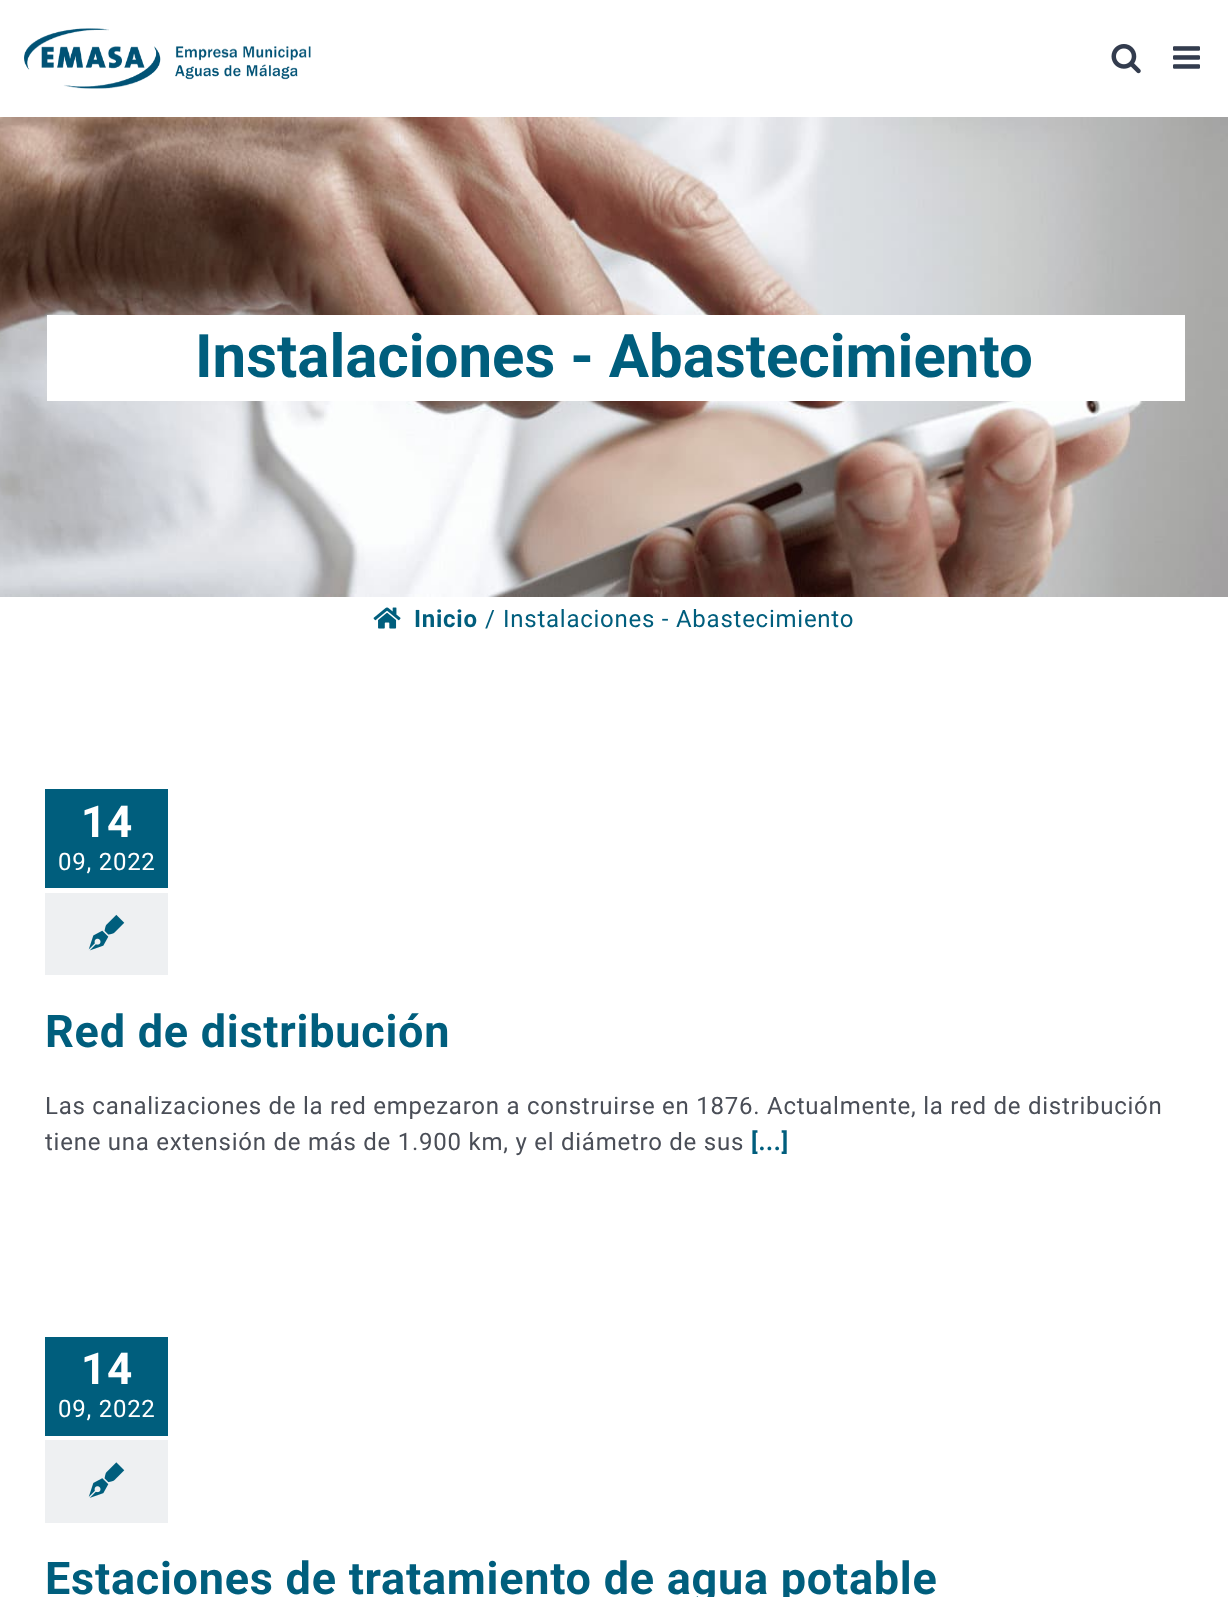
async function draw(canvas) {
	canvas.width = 1228;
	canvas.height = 1597;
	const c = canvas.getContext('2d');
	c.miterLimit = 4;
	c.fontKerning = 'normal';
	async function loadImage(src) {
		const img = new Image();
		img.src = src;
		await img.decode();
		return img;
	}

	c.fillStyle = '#fff';
	c.fillRect(0, 0, 1228, 1597);
	c.drawImage(await loadImage('img1.png'), 24, 28, 287, 61);
	c.drawImage(await loadImage('img2.png'), 1111, 44, 30, 30);
	c.drawImage(await loadImage('img3.png'), 1173, 46, 27, 23);
	c.drawImage(await loadImage('img4.png'), 0, 117, 1228, 480);
	c.fillRect(47, 315, 1138, 86);
	c.font = 'bold 60px Roboto';
	c.fillStyle = '#005e7d';
	c.fillText('Instalaciones - Abastecimiento', 195, 377);
	c.drawImage(await loadImage('img5.png'), 373, 607, 28, 22);
	c.letterSpacing = '0.75px';
	c.font = 'bold 24px Roboto';
	c.fillText('Inicio', 414, 627);
	c.font = '24px Roboto';
	c.fillText('/', 485, 627);
	c.fillText('Instalaciones - Abastecimiento', 503, 627);
	c.fillRect(45, 789, 123, 99);
	c.font = 'bold 44px Roboto';
	c.fillStyle = '#fff';
	c.fillText('14', 81, 837);
	c.font = '24px Roboto';
	c.fillText('09, 2022', 58, 870);
	c.fillStyle = '#eef0f2';
	c.fillRect(45, 893, 123, 82);
	c.drawImage(await loadImage('img6.png'), 88, 914, 37, 37);
	c.font = 'bold 45px Roboto';
	c.fillStyle = '#005e7d';
	c.fillText('Red de distribución', 45, 1047);
	c.font = '24px Roboto';
	c.fillStyle = '#4a4e57';
	c.fillText('Las canalizaciones de la red empezaron a construirse en 1876. Actualmente, la red de distribución', 45, 1114);
	c.fillText('tiene una extensión de más de 1.900 km, y el diámetro de sus', 45, 1150);
	c.font = 'bold 24px Roboto';
	c.fillStyle = '#005e7d';
	c.fillText('[...]', 751, 1150);
	c.fillRect(45, 1337, 123, 99);
	c.font = 'bold 44px Roboto';
	c.fillStyle = '#fff';
	c.fillText('14', 81, 1384);
	c.font = '24px Roboto';
	c.fillText('09, 2022', 58, 1417);
	c.fillStyle = '#eef0f2';
	c.fillRect(45, 1440, 123, 83);
	c.drawImage(await loadImage('img7.png'), 88, 1462, 37, 36);
	c.font = 'bold 45px Roboto';
	c.fillStyle = '#005e7d';
	c.fillText('Estaciones de tratamiento de agua potable', 45, 1594);
}

draw(document.querySelector('canvas'));
